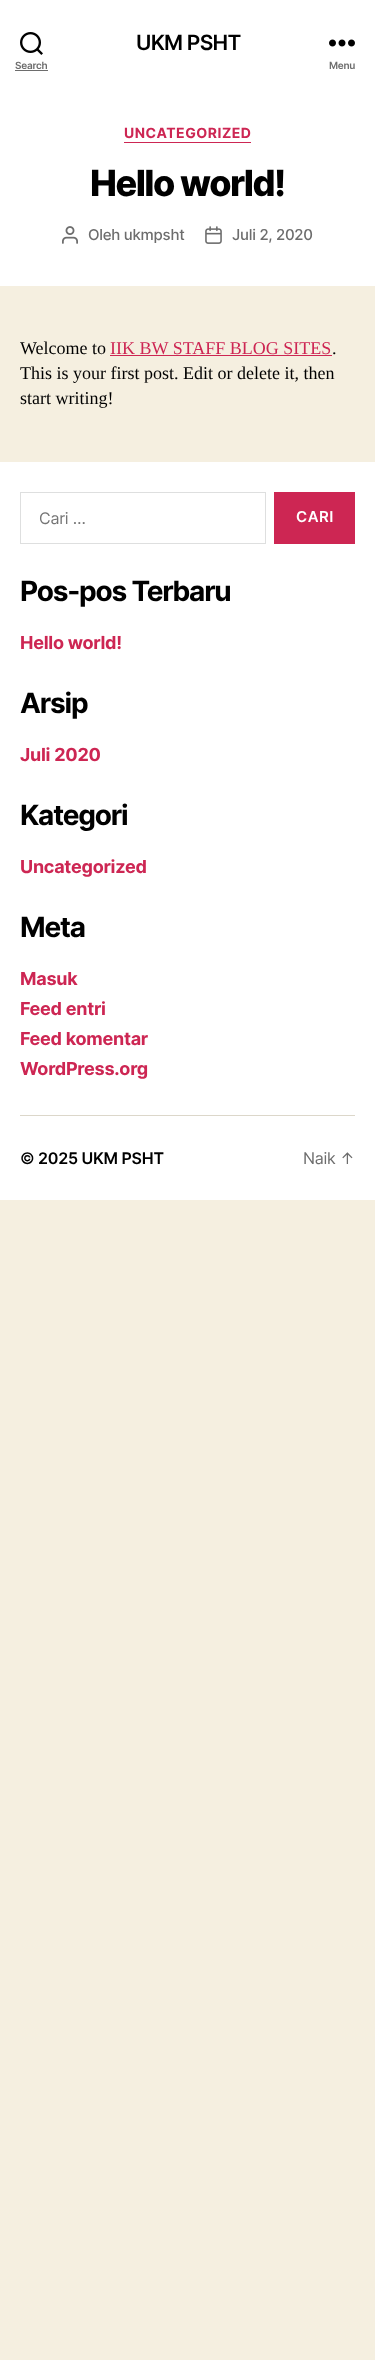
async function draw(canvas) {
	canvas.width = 375;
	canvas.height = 2360;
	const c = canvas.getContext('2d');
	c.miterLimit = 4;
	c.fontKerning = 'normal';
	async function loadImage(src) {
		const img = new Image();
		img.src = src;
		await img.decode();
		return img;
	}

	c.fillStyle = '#f5efe0';
	c.fillRect(0, 0, 375, 2360);
	c.fillStyle = '#fff';
	c.fillRect(0, 0, 375, 286);
	c.letterSpacing = '-0.75px';
	c.font = '600 21px Inter';
	c.fillStyle = '#000';
	c.fillText('UKM PSHT', 136, 50);
	c.drawImage(await loadImage('img1.png'), 20, 32, 23, 23);
	c.letterSpacing = '-0.25px';
	c.font = '600 10px Inter';
	c.fillStyle = '#6d6d6d';
	c.fillText('Search', 15, 69);
	c.fillRect(15, 70, 33, 1);
	c.drawImage(await loadImage('img2.png'), 329, 39, 26, 8);
	c.fillText('Menu', 329, 69);
	c.fillStyle = '#cd2653';
	c.fillRect(124, 142, 127, 1);
	c.letterSpacing = '0.5px';
	c.font = 'bold 14px Inter';
	c.fillText('UNCATEGORIZED', 124, 138);
	c.letterSpacing = '-1.5px';
	c.font = '800 36px Inter';
	c.fillStyle = '#000';
	c.fillText('Hello world!', 90, 196);
	c.drawImage(await loadImage('img3.png'), 62, 226, 16, 18);
	c.letterSpacing = '-0.25px';
	c.font = '500 15px Inter';
	c.fillStyle = '#6d6d6d';
	c.fillText('Oleh ukmpsht', 88, 240);
	c.drawImage(await loadImage('img4.png'), 205, 226, 17, 18);
	c.fillText('Juli 2, 2020', 232, 240);
	c.letterSpacing = '0px';
	c.font = '18px Liberation Serif';
	c.fillStyle = '#000';
	c.fillText('Welcome to', 20, 354);
	c.fillStyle = '#cd2653';
	c.fillText('IIK BW STAFF BLOG SITES', 110, 354);
	c.fillRect(110, 355, 222, 1);
	c.fillStyle = '#000';
	for (const [text, x, y] of [
		['.', 332, 354],
		['This is your first post. Edit or delete it, then', 20, 379],
		['start writing!', 20, 404],
	]) {
		c.fillText(text, x, y);
	}
	c.fillStyle = '#fff';
	c.fillRect(0, 462, 375, 738);
	c.fillStyle = '#dcd7ca';
	c.fillRect(20, 1115, 335, 1);
	c.strokeStyle = '#dedfdf';
	c.strokeRect(20.5, 492.5, 245, 51);
	c.letterSpacing = '-0.25px';
	c.font = '16px Inter';
	c.fillStyle = '#757575';
	c.fillText('Cari …', 39, 524);
	c.fillStyle = '#cd2653';
	c.fillRect(274, 492, 81, 52);
	c.letterSpacing = '0.5px';
	c.font = '600 15px Inter';
	c.fillStyle = '#fff';
	c.fillText('CARI', 296, 522);
	c.letterSpacing = '-1.2px';
	c.font = 'bold 28px Inter';
	c.fillStyle = '#000';
	c.fillText('Pos-pos Terbaru', 20, 601);
	c.letterSpacing = '-0.25px';
	c.font = 'bold 18px Inter';
	c.fillStyle = '#cd2653';
	c.fillText('Hello world!', 20, 649);
	c.letterSpacing = '-1.2px';
	c.font = 'bold 28px Inter';
	c.fillStyle = '#000';
	c.fillText('Arsip', 20, 713);
	c.letterSpacing = '-0.25px';
	c.font = 'bold 18px Inter';
	c.fillStyle = '#cd2653';
	c.fillText('Juli 2020', 20, 761);
	c.letterSpacing = '-1.2px';
	c.font = 'bold 28px Inter';
	c.fillStyle = '#000';
	c.fillText('Kategori', 20, 825);
	c.letterSpacing = '-0.25px';
	c.font = 'bold 18px Inter';
	c.fillStyle = '#cd2653';
	c.fillText('Uncategorized', 20, 873);
	c.letterSpacing = '-1.2px';
	c.font = 'bold 28px Inter';
	c.fillStyle = '#000';
	c.fillText('Meta', 20, 937);
	c.letterSpacing = '-0.25px';
	c.font = 'bold 18px Inter';
	c.fillStyle = '#cd2653';
	for (const [text, x, y] of [
		['Masuk', 20, 985],
		['Feed entri', 20, 1015],
		['Feed komentar', 20, 1045],
		['WordPress.org', 20, 1075],
	]) {
		c.fillText(text, x, y);
	}
	c.font = '600 16px Inter';
	c.fillStyle = '#000';
	c.fillText('© 2025 UKM PSHT', 20, 1164);
	c.font = '16px Inter';
	c.fillStyle = '#6d6d6d';
	c.fillText('Naik ↑', 303, 1164);
}

draw(document.querySelector('canvas'));
